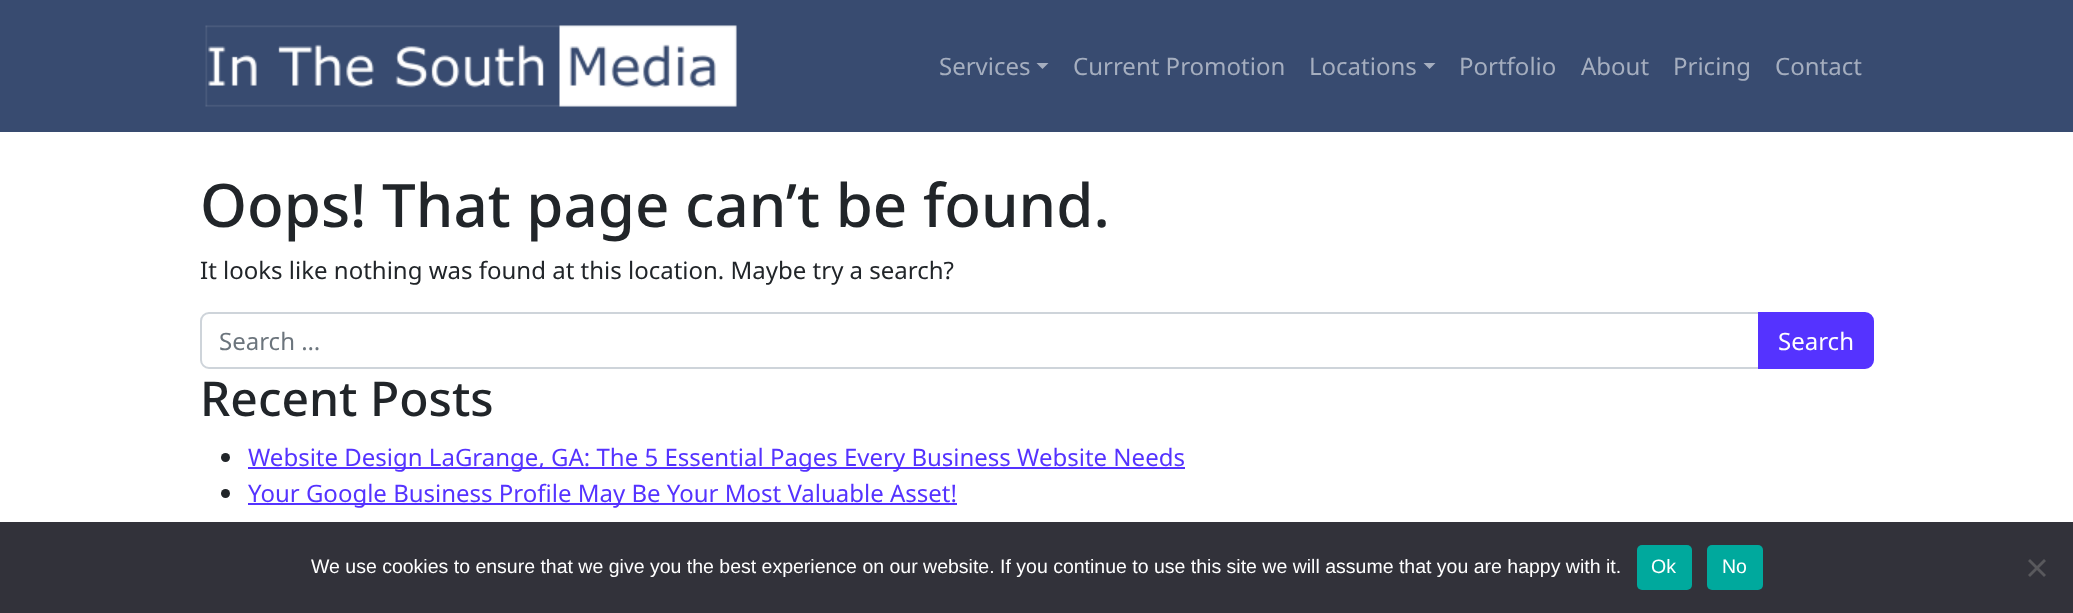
async function draw(canvas) {
	canvas.width = 2073;
	canvas.height = 613;
	const c = canvas.getContext('2d');
	c.miterLimit = 4;
	c.fontKerning = 'normal';
	async function loadImage(src) {
		const img = new Image();
		img.src = src;
		await img.decode();
		return img;
	}

	c.fillStyle = '#fff';
	c.fillRect(0, 0, 2073, 613);
	c.fillStyle = '#384b70';
	c.fillRect(0, 0, 2073, 132);
	c.drawImage(await loadImage('img1.png'), 205, 25, 532, 82);
	c.font = '24px Noto Sans';
	c.fillStyle = '#a5aebf';
	c.fillText('Services', 939, 75);
	c.beginPath();
	c.moveTo(1036.5, 63);
	c.lineTo(1048.5, 63);
	c.lineTo(1042.5, 69);
	c.closePath();
	c.fill();
	c.fillText('Current Promotion', 1073, 75);
	c.fillText('Locations', 1309, 75);
	c.beginPath();
	c.moveTo(1423.5, 63);
	c.lineTo(1435.5, 63);
	c.lineTo(1429.5, 69);
	c.closePath();
	c.fill();
	for (const [text, x, y] of [
		['Portfolio', 1459, 75],
		['About', 1581, 75],
		['Pricing', 1673, 75],
		['Contact', 1775, 75],
	]) {
		c.fillText(text, x, y);
	}
	c.font = '500 60px Noto Sans';
	c.fillStyle = '#212529';
	c.fillText('Oops! That page can’t be found.', 200, 227);
	c.font = '24px Noto Sans';
	c.fillText('It looks like nothing was found at this location. Maybe try a search?', 200, 279);
	c.beginPath();
	c.roundRect(201, 313, 1558, 55, [8, 0, 0, 8]);
	c.strokeStyle = '#ced4da';
	c.lineWidth = 2;
	c.stroke();
	c.fillStyle = '#6c757d';
	c.fillText('Search …', 219, 350);
	c.fillStyle = '#53f';
	c.beginPath();
	c.roundRect(1759, 313, 114, 55, [0, 8, 8, 0]);
	c.fill();
	c.strokeStyle = '#53f';
	c.stroke();
	c.fillStyle = '#fff';
	c.fillText('Search', 1778, 350);
	c.font = '500 48px Noto Sans';
	c.fillStyle = '#212529';
	c.fillText('Recent Posts', 200, 416);
	c.beginPath();
	c.arc(225.5, 457.5, 4.5, 0, 2 * Math.PI);
	c.fill();
	c.fillStyle = '#53f';
	c.fillRect(248, 467, 937, 2);
	c.font = '24px Noto Sans';
	c.fillText('Website Design LaGrange, GA: The 5 Essential Pages Every Business Website Needs', 248, 466);
	c.fillStyle = '#212529';
	c.beginPath();
	c.arc(225.5, 493.5, 4.5, 0, 2 * Math.PI);
	c.fill();
	c.fillStyle = '#53f';
	c.fillRect(248, 503, 709, 2);
	c.fillText('Your Google Business Profile May Be Your Most Valuable Asset!', 248, 502);
	c.fillStyle = '#32323a';
	c.fillRect(0, 522, 2073, 91);
	c.font = '19.5px Liberation Sans';
	c.fillStyle = '#fff';
	c.fillText('We use cookies to ensure that we give you the best experience on our website. If you continue to use this site we will assume that you are happy with it.', 311, 573);
	c.fillStyle = '#00a99d';
	c.beginPath();
	c.roundRect(1637, 545, 55, 45, 5);
	c.fill();
	c.fillStyle = '#fff';
	c.fillText('Ok', 1651, 573);
	c.fillStyle = '#00a99d';
	c.beginPath();
	c.roundRect(1707, 545, 56, 45, 5);
	c.fill();
	c.fillStyle = '#fff';
	c.fillText('No', 1722, 573);
	c.fillStyle = '#59595d';
	c.beginPath();
	c.moveTo(2044, 559);
	c.lineTo(2046, 561);
	c.lineTo(2030, 577);
	c.lineTo(2028, 575);
	c.closePath();
	c.fill();
	c.beginPath();
	c.moveTo(2028, 561);
	c.lineTo(2030, 559);
	c.lineTo(2046, 575);
	c.lineTo(2044, 577);
	c.closePath();
	c.fill();
}

draw(document.querySelector('canvas'));
